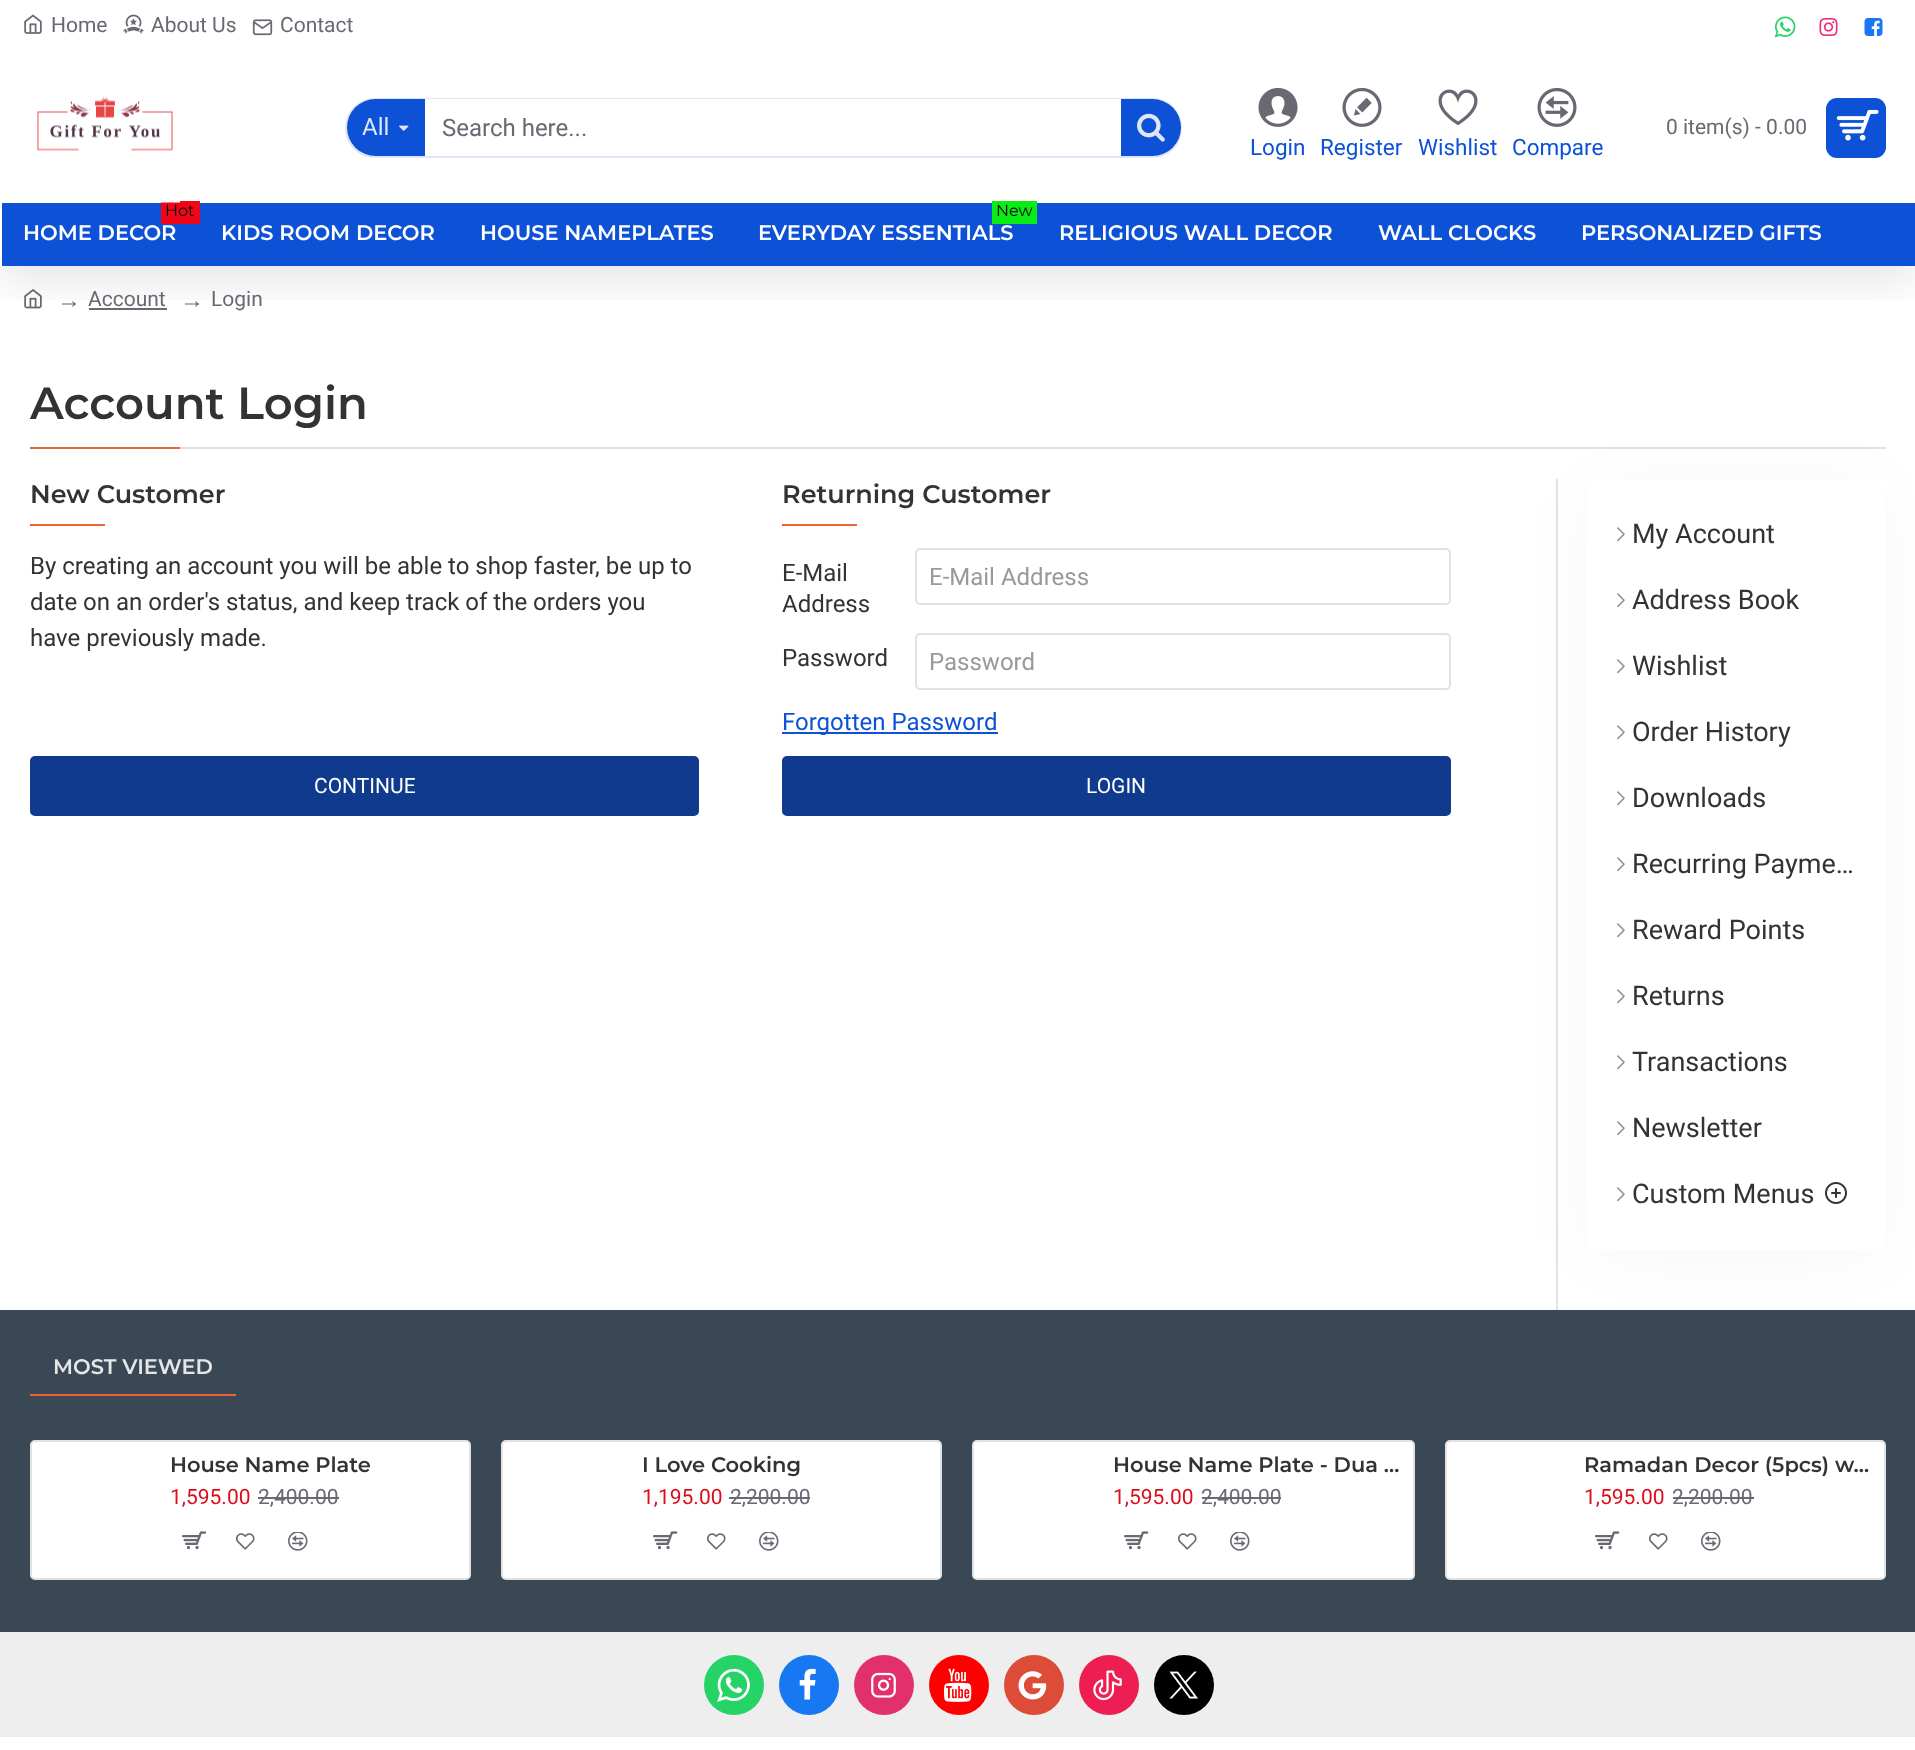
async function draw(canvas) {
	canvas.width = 1915;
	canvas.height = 1750;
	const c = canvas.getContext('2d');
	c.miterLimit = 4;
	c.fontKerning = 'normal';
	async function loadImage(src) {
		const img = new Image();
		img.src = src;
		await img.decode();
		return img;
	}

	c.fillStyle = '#fff';
	c.fillRect(0, 0, 1915, 1750);
	c.drawImage(await loadImage('img15.png'), 24, 289, 18, 20);
	c.fillStyle = '#696973';
	c.fillRect(89, 308, 78, 2);
	c.save();
	c.beginPath();
	c.rect(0, 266, 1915, 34);
	c.clip();
	c.fillStyle = '#0000001a';
	c.filter = 'blur(22.5px)';
	c.beginPath();
	c.rect(0, 15, 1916, 266);
	c.fill();
	c.filter = 'none';
	c.restore();
	c.drawImage(await loadImage('img1.png'), 24, 14, 18, 20);
	c.font = '21px Roboto';
	c.fillText('Home', 51, 32);
	c.drawImage(await loadImage('img2.png'), 123, 14, 21, 20);
	c.fillText('About Us', 151, 32);
	c.drawImage(await loadImage('img3.png'), 252, 19, 21, 17);
	c.fillText('Contact', 280, 32);
	c.drawImage(await loadImage('img4.png'), 1774, 16, 22, 22);
	c.drawImage(await loadImage('img5.png'), 1819, 18, 19, 18);
	c.drawImage(await loadImage('img6.png'), 1864, 18, 19, 18);
	c.fillStyle = '#0d52d6';
	c.fillRect(2, 203, 1913, 63);
	c.fillStyle = '#f00717';
	c.fillRect(161, 201, 39, 23);
	c.drawImage(await loadImage('img7.png'), 37, 97, 143, 106);
	c.beginPath();
	c.roundRect(346, 99, 835, 58, 29);
	c.strokeStyle = '#dfe7f6';
	c.lineWidth = 2;
	c.stroke();
	c.fillStyle = '#0d52d6';
	c.beginPath();
	c.roundRect(347, 99, 78, 57, [28.5, 0, 0, 28.5]);
	c.fill();
	c.font = '24px Roboto';
	c.fillStyle = '#dfe7f6';
	c.fillText('All', 362, 135);
	c.drawImage(await loadImage('img8.png'), 399, 125, 10, 6);
	c.fillStyle = '#fff';
	c.fillRect(425, 99, 696, 1);
	c.fillStyle = '#696973';
	c.fillText('Search here...', 442, 136);
	c.fillStyle = '#0d52d6';
	c.beginPath();
	c.roundRect(1121, 99, 60, 57, [0, 28.5, 28.5, 0]);
	c.fill();
	c.drawImage(await loadImage('img9.png'), 1137, 113, 28, 29);
	c.font = '21px Roboto';
	c.fillStyle = '#696973';
	c.fillText('0 item(s) - 0.00', 1666, 134);
	c.fillStyle = '#0d52d6';
	c.beginPath();
	c.roundRect(1826, 98, 60, 60, 11);
	c.fill();
	c.drawImage(await loadImage('img10.png'), 1836, 109, 43, 32);
	c.drawImage(await loadImage('img11.png'), 1258, 87, 40, 40);
	c.font = '22.5px Roboto';
	c.fillText('Login', 1250, 155);
	c.drawImage(await loadImage('img12.png'), 1342, 87, 40, 40);
	c.fillText('Register', 1320, 155);
	c.drawImage(await loadImage('img13.png'), 1438, 89, 40, 37);
	c.fillText('Wishlist', 1418, 155);
	c.drawImage(await loadImage('img14.png'), 1537, 87, 40, 40);
	c.fillText('Compare', 1512, 155);
	c.font = '100 16px "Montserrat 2"';
	c.fillStyle = '#0c0000';
	c.fillText('Hot', 165, 216);
	c.font = '100 21px Montserrat';
	c.fillStyle = '#fff';
	for (const [text, x, y] of [
		['HOME DECOR', 23, 240],
		['KIDS ROOM DECOR', 221, 240],
		['HOUSE NAMEPLATES', 480, 240],
	]) {
		c.fillText(text, x, y);
	}
	c.fillStyle = '#09ec16';
	c.fillRect(992, 201, 45, 23);
	c.font = '100 16px "Montserrat 2"';
	c.fillStyle = '#0c0000';
	c.fillText('New', 996, 216);
	c.font = '100 21px Montserrat';
	c.fillStyle = '#fff';
	for (const [text, x, y] of [
		['EVERYDAY ESSENTIALS', 758, 240],
		['RELIGIOUS WALL DECOR', 1059, 240],
		['WALL CLOCKS', 1378, 240],
		['PERSONALIZED GIFTS', 1581, 240],
	]) {
		c.fillText(text, x, y);
	}
	c.font = '24px Liberation Serif';
	c.fillStyle = '#696973';
	c.fillText('→', 57, 308);
	c.font = '21px Roboto';
	c.fillText('Account', 88, 306);
	c.font = '24px Liberation Serif';
	c.fillText('→', 180, 308);
	c.font = '21px Roboto';
	c.fillText('Login', 211, 306);
	c.fillStyle = '#e2e2e2';
	c.fillRect(180, 447, 1706, 2);
	c.font = '100 45px Montserrat';
	c.fillStyle = '#333';
	c.fillText('Account Login', 30, 419);
	c.fillStyle = '#e96631';
	c.fillRect(30, 447, 150, 2);
	c.font = '100 25.5px Montserrat';
	c.fillStyle = '#333';
	c.fillText('New Customer', 30, 503);
	c.fillStyle = '#e96631';
	c.fillRect(30, 524, 75, 2);
	c.font = '24px Roboto';
	c.fillStyle = '#333';
	for (const [text, x, y] of [
		['By creating an account you will be able to shop faster, be up to', 30, 574],
		['date on an order\'s status, and keep track of the orders you', 30, 610],
		['have previously made.', 30, 646],
	]) {
		c.fillText(text, x, y);
	}
	c.fillStyle = '#0f3a8d';
	c.beginPath();
	c.roundRect(30, 756, 669, 60, 5);
	c.fill();
	c.font = '21px Roboto';
	c.fillStyle = '#fff';
	c.fillText('CONTINUE', 314, 793);
	c.font = '100 25.5px Montserrat';
	c.fillStyle = '#333';
	c.fillText('Returning Customer', 782, 503);
	c.fillStyle = '#e96631';
	c.fillRect(782, 524, 75, 2);
	c.font = '24px Roboto';
	c.fillStyle = '#333';
	c.fillText('E-Mail', 782, 581);
	c.fillText('Address', 782, 612);
	c.beginPath();
	c.roundRect(916, 549, 534, 55, 4);
	c.strokeStyle = '#e2e2e2';
	c.stroke();
	c.fillStyle = '#999';
	c.fillText('E-Mail Address', 929, 585);
	c.fillStyle = '#333';
	c.fillText('Password', 782, 666);
	c.beginPath();
	c.roundRect(916, 634, 534, 55, 4);
	c.stroke();
	c.fillStyle = '#999';
	c.fillText('Password', 929, 670);
	c.fillStyle = '#0d52d6';
	c.fillRect(782, 732, 216, 2);
	c.fillText('Forgotten Password', 782, 730);
	c.fillStyle = '#0f3a8d';
	c.beginPath();
	c.roundRect(782, 756, 669, 60, 5);
	c.fill();
	c.font = '21px Roboto';
	c.fillStyle = '#fff';
	c.fillText('LOGIN', 1086, 793);
	c.fillStyle = '#e2e2e2';
	c.fillRect(1556, 479, 2, 831);
	c.fillStyle = '#3a4754';
	c.fillRect(0, 1310, 1915, 322);
	c.fillStyle = '#0000000d';
	c.filter = 'blur(37.5px)';
	c.beginPath();
	c.rect(1602, 501, 269, 741);
	c.fill();
	c.filter = 'none';
	c.fillStyle = '#fff';
	c.beginPath();
	c.roundRect(1587, 479, 299, 771, 5);
	c.fill();
	c.drawImage(await loadImage('img16.png'), 1617, 527, 8, 15);
	c.font = '27px Roboto';
	c.fillStyle = '#333';
	c.fillText('My Account', 1632, 543);
	c.drawImage(await loadImage('img16.png'), 1617, 593, 8, 15);
	c.fillText('Address Book', 1632, 609);
	c.drawImage(await loadImage('img16.png'), 1617, 659, 8, 15);
	c.fillText('Wishlist', 1632, 675);
	c.drawImage(await loadImage('img16.png'), 1617, 725, 8, 15);
	c.fillText('Order History', 1632, 741);
	c.drawImage(await loadImage('img16.png'), 1617, 791, 8, 15);
	c.fillText('Downloads', 1632, 807);
	c.drawImage(await loadImage('img16.png'), 1617, 857, 8, 15);
	c.fillText('Recurring Payme…', 1632, 873);
	c.drawImage(await loadImage('img16.png'), 1617, 923, 8, 15);
	c.fillText('Reward Points', 1632, 939);
	c.drawImage(await loadImage('img16.png'), 1617, 989, 8, 15);
	c.fillText('Returns', 1632, 1005);
	c.drawImage(await loadImage('img16.png'), 1617, 1055, 8, 15);
	c.fillText('Transactions', 1632, 1071);
	c.drawImage(await loadImage('img16.png'), 1617, 1121, 8, 15);
	c.fillText('Newsletter', 1632, 1137);
	c.drawImage(await loadImage('img16.png'), 1617, 1187, 8, 15);
	c.fillText('Custom Menus', 1632, 1203);
	c.drawImage(await loadImage('img17.png'), 1825, 1182, 22, 22);
	c.fillStyle = '#e96631';
	c.fillRect(30, 1394, 206, 2);
	c.font = '100 21px Montserrat';
	c.fillStyle = '#e6e6e6';
	c.fillText('MOST VIEWED', 53, 1374);
	c.fillStyle = '#fff';
	c.beginPath();
	c.roundRect(31, 1441, 439, 138, 4);
	c.fill();
	c.stroke();
	c.fillStyle = '#333';
	c.fillText('House Name Plate', 170, 1472);
	c.font = '21px Roboto';
	c.fillStyle = '#dd0e1c';
	c.fillText('1,595.00', 170, 1504);
	c.fillStyle = '#696973';
	c.fillText('2,400.00', 258, 1504);
	c.fillRect(258, 1497, 81, 2);
	c.drawImage(await loadImage('img18.png'), 182, 1531, 24, 19);
	c.drawImage(await loadImage('img19.png'), 236, 1533, 19, 17);
	c.drawImage(await loadImage('img20.png'), 288, 1532, 20, 19);
	c.fillStyle = '#fff';
	c.beginPath();
	c.roundRect(502, 1441, 439, 138, 4);
	c.fill();
	c.stroke();
	c.font = '100 21px Montserrat';
	c.fillStyle = '#333';
	c.fillText('I Love Cooking', 642, 1472);
	c.font = '21px Roboto';
	c.fillStyle = '#dd0e1c';
	c.fillText('1,195.00', 642, 1504);
	c.fillStyle = '#696973';
	c.fillText('2,200.00', 730, 1504);
	c.fillRect(729, 1497, 81, 2);
	c.drawImage(await loadImage('img21.png'), 653, 1531, 25, 19);
	c.drawImage(await loadImage('img19.png'), 707, 1533, 19, 17);
	c.drawImage(await loadImage('img20.png'), 759, 1532, 20, 19);
	c.fillStyle = '#fff';
	c.beginPath();
	c.roundRect(973, 1441, 441, 138, 4);
	c.fill();
	c.stroke();
	c.font = '100 21px Montserrat';
	c.fillStyle = '#333';
	c.fillText('House Name Plate - Dua …', 1113, 1472);
	c.font = '21px Roboto';
	c.fillStyle = '#dd0e1c';
	c.fillText('1,595.00', 1113, 1504);
	c.fillStyle = '#696973';
	c.fillText('2,400.00', 1201, 1504);
	c.fillRect(1202, 1497, 79, 2);
	c.drawImage(await loadImage('img21.png'), 1124, 1531, 25, 19);
	c.drawImage(await loadImage('img19.png'), 1178, 1533, 19, 17);
	c.drawImage(await loadImage('img20.png'), 1230, 1532, 20, 19);
	c.fillStyle = '#fff';
	c.beginPath();
	c.roundRect(1446, 1441, 439, 138, 4);
	c.fill();
	c.stroke();
	c.font = '100 21px Montserrat';
	c.fillStyle = '#333';
	c.fillText('Ramadan Decor (5pcs) w…', 1584, 1472);
	c.font = '21px Roboto';
	c.fillStyle = '#dd0e1c';
	c.fillText('1,595.00', 1584, 1504);
	c.fillStyle = '#696973';
	c.fillText('2,200.00', 1672, 1504);
	c.fillRect(1673, 1497, 81, 2);
	c.drawImage(await loadImage('img21.png'), 1595, 1531, 25, 19);
	c.drawImage(await loadImage('img19.png'), 1649, 1533, 19, 17);
	c.drawImage(await loadImage('img20.png'), 1701, 1532, 20, 19);
	c.fillStyle = '#eee';
	c.fillRect(0, 1632, 1915, 105);
	c.fillStyle = '#25d366';
	c.beginPath();
	c.arc(734, 1685, 30, 0, 2 * Math.PI);
	c.fill();
	c.drawImage(await loadImage('img22.png'), 717, 1668, 33, 34);
	c.fillStyle = '#1877f2';
	c.beginPath();
	c.arc(809, 1685, 30, 0, 2 * Math.PI);
	c.fill();
	c.drawImage(await loadImage('img23.png'), 799, 1668, 17, 32);
	c.fillStyle = '#e1306c';
	c.beginPath();
	c.arc(884, 1685, 30, 0, 2 * Math.PI);
	c.fill();
	c.drawImage(await loadImage('img24.png'), 871, 1672, 25, 26);
	c.fillStyle = '#f00';
	c.beginPath();
	c.arc(959, 1685, 30, 0, 2 * Math.PI);
	c.fill();
	c.drawImage(await loadImage('img25.png'), 944, 1668, 28, 34);
	c.fillStyle = '#dd4b39';
	c.beginPath();
	c.arc(1034, 1685, 30, 0, 2 * Math.PI);
	c.fill();
	c.drawImage(await loadImage('img26.png'), 1018, 1671, 29, 29);
	c.fillStyle = '#ee1d52';
	c.beginPath();
	c.arc(1109, 1685, 30, 0, 2 * Math.PI);
	c.fill();
	c.drawImage(await loadImage('img27.png'), 1093, 1670, 29, 31);
	c.fillStyle = '#000';
	c.beginPath();
	c.arc(1184, 1685, 30, 0, 2 * Math.PI);
	c.fill();
	c.drawImage(await loadImage('img28.png'), 1169, 1671, 29, 28);
}

draw(document.querySelector('canvas'));
